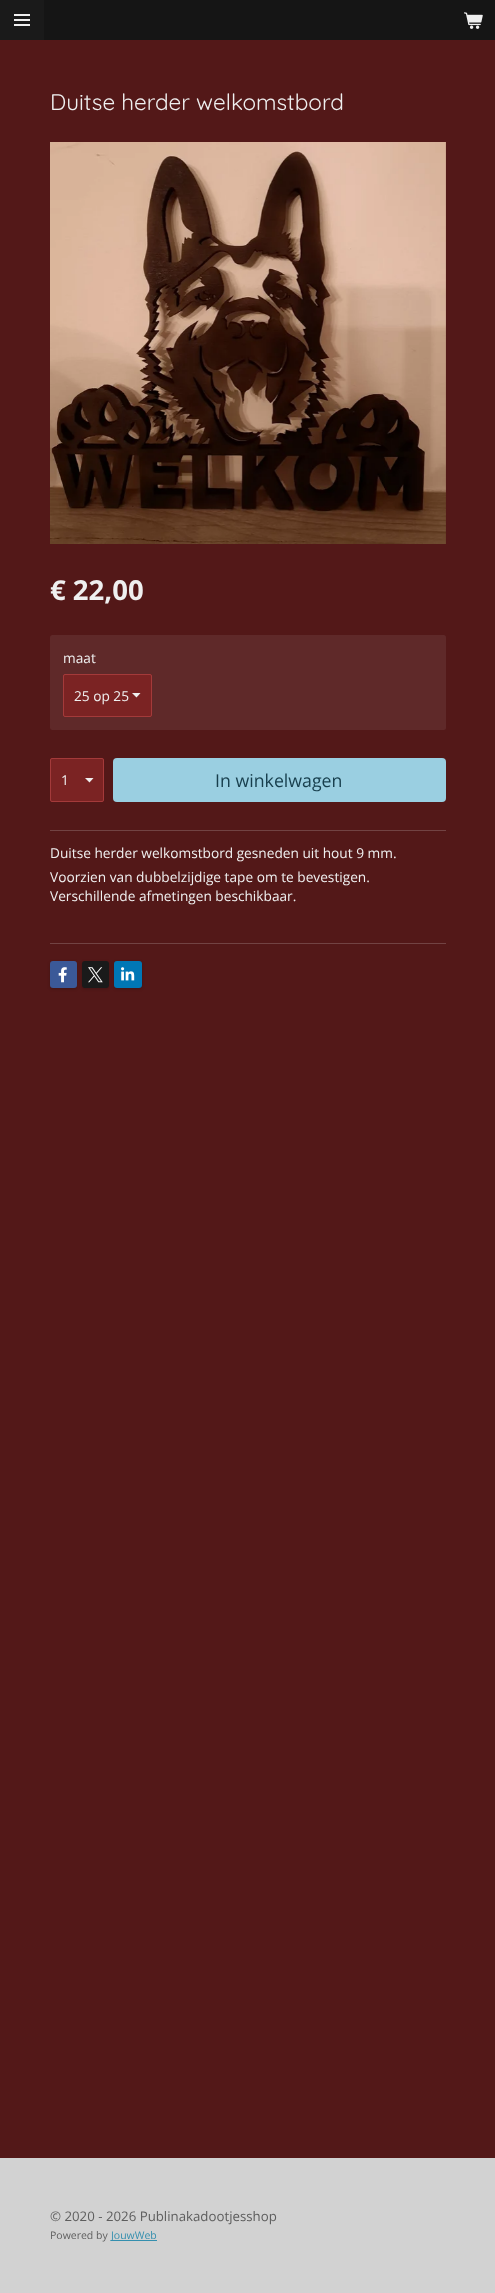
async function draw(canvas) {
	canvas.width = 495;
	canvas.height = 2293;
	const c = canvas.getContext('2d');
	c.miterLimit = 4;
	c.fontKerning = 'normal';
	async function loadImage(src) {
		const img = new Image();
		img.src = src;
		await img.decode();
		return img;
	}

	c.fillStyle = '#531818';
	c.fillRect(0, 0, 495, 2293);
	for (const [x, y, w, h, color] of [
		[0, 0, 44, 40, '#1a1a1a'],
		[14, 19, 16, 2, '#efefef'],
		[14, 14, 16, 2, '#efefef'],
		[14, 24, 16, 2, '#efefef'],
		[44, 0, 451, 40, '#151515'],
	]) {
		c.fillStyle = color;
		c.fillRect(x, y, w, h);
	}
	c.drawImage(await loadImage('img1.png'), 464, 12, 19, 17);
	c.font = '22.5px Quicksand';
	c.fillStyle = '#efefef';
	c.fillText('Duitse herder welkomstbord', 50, 110);
	c.drawImage(await loadImage('img2.png'), 50, 142, 396, 402);
	c.font = 'bold 27.5px Open Sans';
	c.fillText('€ 22,00', 50, 600);
	c.fillStyle = '#5f2929';
	c.beginPath();
	c.roundRect(50, 635, 396, 95, 2.5);
	c.fill();
	c.font = '13.7px Open Sans';
	c.fillStyle = '#efefef';
	c.fillText('maat', 63, 663);
	c.fillStyle = '#7b2323';
	c.beginPath();
	c.roundRect(63, 674, 89, 43, 2);
	c.fill();
	c.fillStyle = '#efefef';
	c.beginPath();
	c.moveTo(136.5, 697.5);
	c.lineTo(132, 693);
	c.lineTo(140.5, 693);
	c.closePath();
	c.fill();
	c.beginPath();
	c.roundRect(63.5, 674.5, 88, 42, 1.5);
	c.strokeStyle = '#cd515180';
	c.stroke();
	c.fillText('25 op 25', 74, 701);
	c.fillStyle = '#7b2323';
	c.beginPath();
	c.roundRect(50, 758, 54, 44, 2);
	c.fill();
	c.fillStyle = '#efefef';
	c.beginPath();
	c.moveTo(89.5, 782.5);
	c.lineTo(85, 778);
	c.lineTo(93.5, 778);
	c.closePath();
	c.fill();
	c.beginPath();
	c.roundRect(50.5, 758.5, 53, 43, 1.5);
	c.stroke();
	c.fillText('1', 61, 785);
	c.fillStyle = '#9acfe1';
	c.beginPath();
	c.roundRect(113, 758, 333, 44, 4);
	c.fill();
	c.font = '17.75px Open Sans';
	c.fillStyle = '#173e4c';
	c.fillText('In winkelwagen', 215, 787);
	c.fillStyle = '#724343';
	c.fillRect(50, 830, 396, 1);
	c.font = '13.7px Open Sans';
	c.fillStyle = '#efefef';
	for (const [text, x, y] of [
		['Duitse herder welkomstbord gesneden uit hout 9 mm.', 50, 858],
		['Voorzien van dubbelzijdige tape om te bevestigen.', 50, 882],
		['Verschillende afmetingen beschikbaar.', 50, 901],
	]) {
		c.fillText(text, x, y);
	}
	c.fillStyle = '#724343';
	c.fillRect(50, 943, 396, 1);
	c.fillStyle = '#00000033';
	c.filter = 'blur(1.5px)';
	c.beginPath();
	c.roundRect(50, 962, 27, 27, 3);
	c.fill();
	c.filter = 'none';
	c.fillStyle = '#3b5998';
	c.beginPath();
	c.roundRect(50, 961, 27, 27, 3);
	c.fill();
	c.drawImage(await loadImage('img3.png'), 58, 967, 9, 16);
	c.fillStyle = '#00000033';
	c.filter = 'blur(1.5px)';
	c.beginPath();
	c.roundRect(82, 962, 27, 27, 3);
	c.fill();
	c.filter = 'none';
	c.fillStyle = '#1a1a1a';
	c.beginPath();
	c.roundRect(82, 961, 27, 27, 3);
	c.fill();
	c.drawImage(await loadImage('img4.png'), 88, 967, 15, 16);
	c.fillStyle = '#00000033';
	c.filter = 'blur(1.5px)';
	c.beginPath();
	c.roundRect(114, 962, 28, 27, 3);
	c.fill();
	c.filter = 'none';
	c.fillStyle = '#0077b5';
	c.beginPath();
	c.roundRect(114, 961, 28, 27, 3);
	c.fill();
	c.drawImage(await loadImage('img5.png'), 121, 967, 14, 14);
	c.fillStyle = '#d2d2d2';
	c.fillRect(0, 2158, 495, 135);
	c.font = '13.25px Open Sans';
	c.fillStyle = '#5e5e5e';
	c.fillText('© 2020 - 2026 Publinakadootjesshop', 50, 2221);
	c.font = '10.5px Open Sans';
	c.fillText('Powered by', 50, 2239);
	c.fillStyle = '#348fae';
	c.fillRect(111, 2240, 46, 1);
	c.fillText('JouwWeb', 111, 2239);
}

draw(document.querySelector('canvas'));
